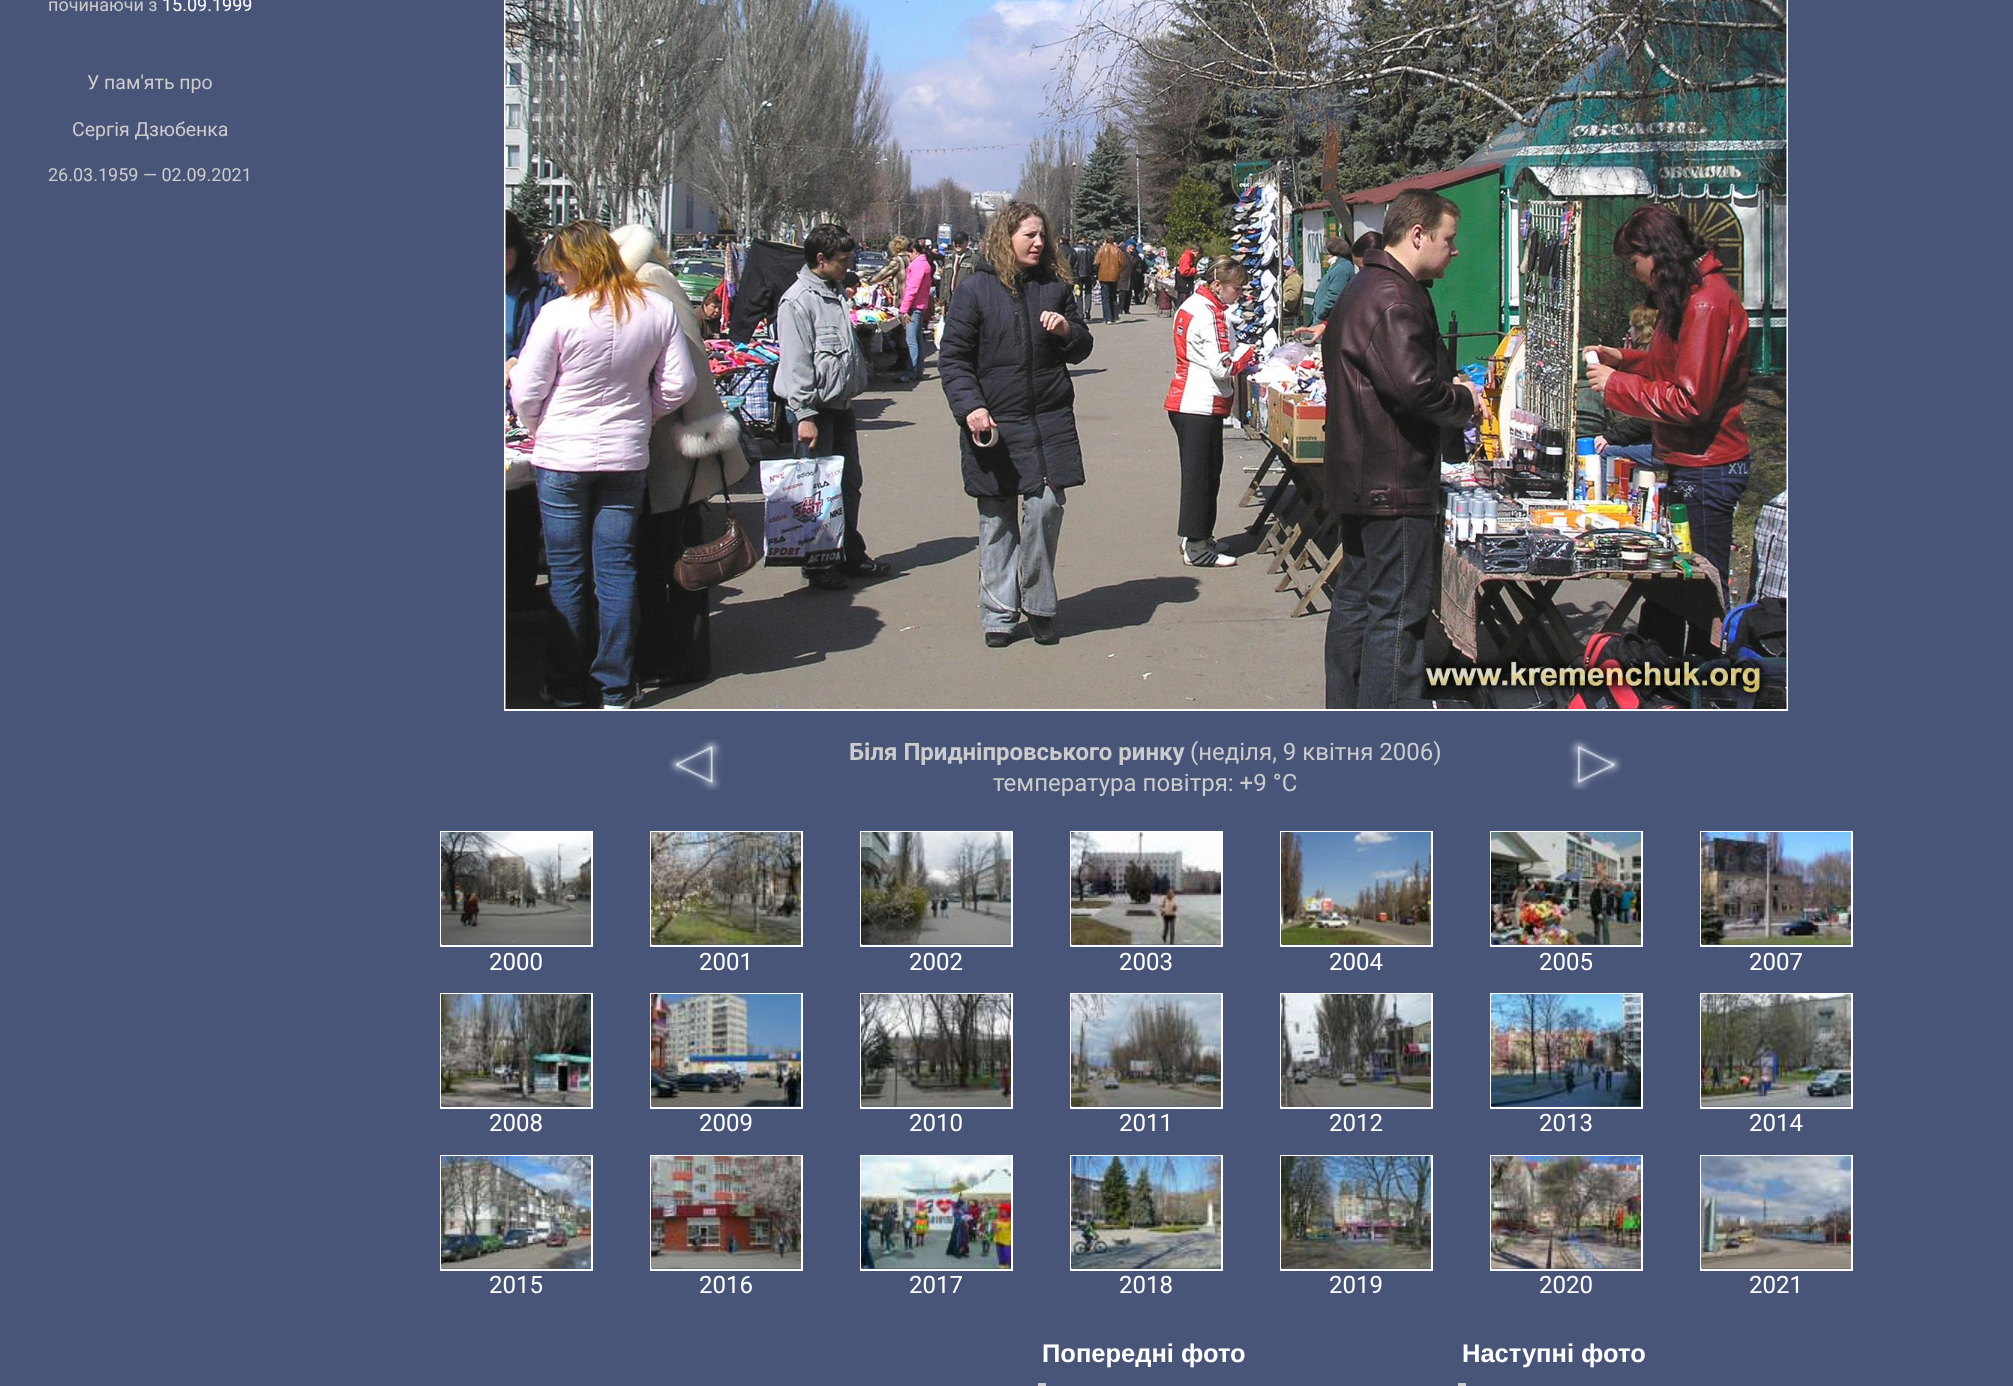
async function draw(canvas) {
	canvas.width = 2013;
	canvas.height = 1386;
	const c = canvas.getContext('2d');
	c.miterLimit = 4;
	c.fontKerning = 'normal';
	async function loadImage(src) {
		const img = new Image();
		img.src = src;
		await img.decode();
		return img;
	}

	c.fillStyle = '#495578';
	c.fillRect(0, 0, 2013, 1386);
	c.font = '18px Roboto';
	c.fillStyle = '#ccc';
	c.fillText('починаючи з', 48, 11);
	c.fillStyle = '#fff';
	c.fillText('15.09.1999', 162, 11);
	c.font = '19.5px Roboto';
	c.fillStyle = '#ccc';
	c.fillText('У пам\'ять про', 87, 89);
	c.fillText('Сергія Дзюбенка', 72, 136);
	c.font = '18px Roboto';
	c.fillText('26.03.1959 — 02.09.2021', 48, 181);
	c.strokeStyle = '#fff';
	c.lineWidth = 2;
	c.strokeRect(505, -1, 1282, 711);
	c.drawImage(await loadImage('img1.png'), 505, 0, 1282, 709);
	c.drawImage(await loadImage('img2.png'), 668, 739, 55, 51);
	c.font = 'bold 24px Roboto';
	c.fillText('Біля Придніпровського ринку', 849, 760);
	c.font = '24px Roboto';
	c.fillText('(неділя, 9 квітня 2006)', 1190, 760);
	c.fillText('температура повітря: +9 °C', 993, 791);
	c.drawImage(await loadImage('img3.png'), 1568, 739, 54, 51);
	c.strokeRect(441, 832, 151, 114);
	c.drawImage(await loadImage('img4.png'), 441, 832, 150, 113);
	c.fillStyle = '#fff';
	c.fillText('2000', 489, 970);
	c.strokeRect(651, 832, 151, 114);
	c.drawImage(await loadImage('img5.png'), 651, 832, 150, 113);
	c.fillText('2001', 699, 970);
	c.strokeRect(861, 832, 151, 114);
	c.drawImage(await loadImage('img6.png'), 861, 832, 150, 113);
	c.fillText('2002', 909, 970);
	c.strokeRect(1071, 832, 151, 114);
	c.drawImage(await loadImage('img7.png'), 1071, 832, 150, 113);
	c.fillText('2003', 1119, 970);
	c.strokeRect(1281, 832, 151, 114);
	c.drawImage(await loadImage('img8.png'), 1281, 832, 150, 113);
	c.fillText('2004', 1329, 970);
	c.strokeRect(1491, 832, 151, 114);
	c.drawImage(await loadImage('img9.png'), 1491, 832, 150, 113);
	c.fillText('2005', 1539, 970);
	c.strokeRect(1701, 832, 151, 114);
	c.drawImage(await loadImage('img10.png'), 1701, 832, 150, 113);
	c.fillText('2007', 1749, 970);
	c.strokeRect(441, 994, 151, 114);
	c.drawImage(await loadImage('img11.png'), 441, 994, 150, 113);
	c.fillText('2008', 489, 1131);
	c.strokeRect(651, 994, 151, 114);
	c.drawImage(await loadImage('img12.png'), 651, 994, 150, 113);
	c.fillText('2009', 699, 1131);
	c.strokeRect(861, 994, 151, 114);
	c.drawImage(await loadImage('img13.png'), 861, 994, 150, 113);
	c.fillText('2010', 909, 1131);
	c.strokeRect(1071, 994, 151, 114);
	c.drawImage(await loadImage('img14.png'), 1071, 994, 150, 113);
	c.fillText('2011', 1119, 1131);
	c.strokeRect(1281, 994, 151, 114);
	c.drawImage(await loadImage('img15.png'), 1281, 994, 150, 113);
	c.fillText('2012', 1329, 1131);
	c.strokeRect(1491, 994, 151, 114);
	c.drawImage(await loadImage('img16.png'), 1491, 994, 150, 113);
	c.fillText('2013', 1539, 1131);
	c.strokeRect(1701, 994, 151, 114);
	c.drawImage(await loadImage('img17.png'), 1701, 994, 150, 113);
	c.fillText('2014', 1749, 1131);
	c.strokeRect(441, 1156, 151, 114);
	c.drawImage(await loadImage('img18.png'), 441, 1156, 150, 113);
	c.fillText('2015', 489, 1293);
	c.strokeRect(651, 1156, 151, 114);
	c.drawImage(await loadImage('img19.png'), 651, 1156, 150, 113);
	c.fillText('2016', 699, 1293);
	c.strokeRect(861, 1156, 151, 114);
	c.drawImage(await loadImage('img20.png'), 861, 1156, 150, 113);
	c.fillText('2017', 909, 1293);
	c.strokeRect(1071, 1156, 151, 114);
	c.drawImage(await loadImage('img21.png'), 1071, 1156, 150, 113);
	c.fillText('2018', 1119, 1293);
	c.strokeRect(1281, 1156, 151, 114);
	c.drawImage(await loadImage('img22.png'), 1281, 1156, 150, 113);
	c.fillText('2019', 1329, 1293);
	c.strokeRect(1491, 1156, 151, 114);
	c.drawImage(await loadImage('img23.png'), 1491, 1156, 150, 113);
	c.fillText('2020', 1539, 1293);
	c.strokeRect(1701, 1156, 151, 114);
	c.drawImage(await loadImage('img24.png'), 1701, 1156, 150, 113);
	c.fillText('2021', 1749, 1293);
	c.font = 'bold 25.5px Arimo';
	c.fillText('Попередні фото', 1042, 1362);
	c.fillText('Наступні фото', 1462, 1362);
	c.fillStyle = '#ccc';
	c.fillRect(1038, 1383, 8, 3);
	c.fillRect(1458, 1383, 8, 3);
}

draw(document.querySelector('canvas'));
